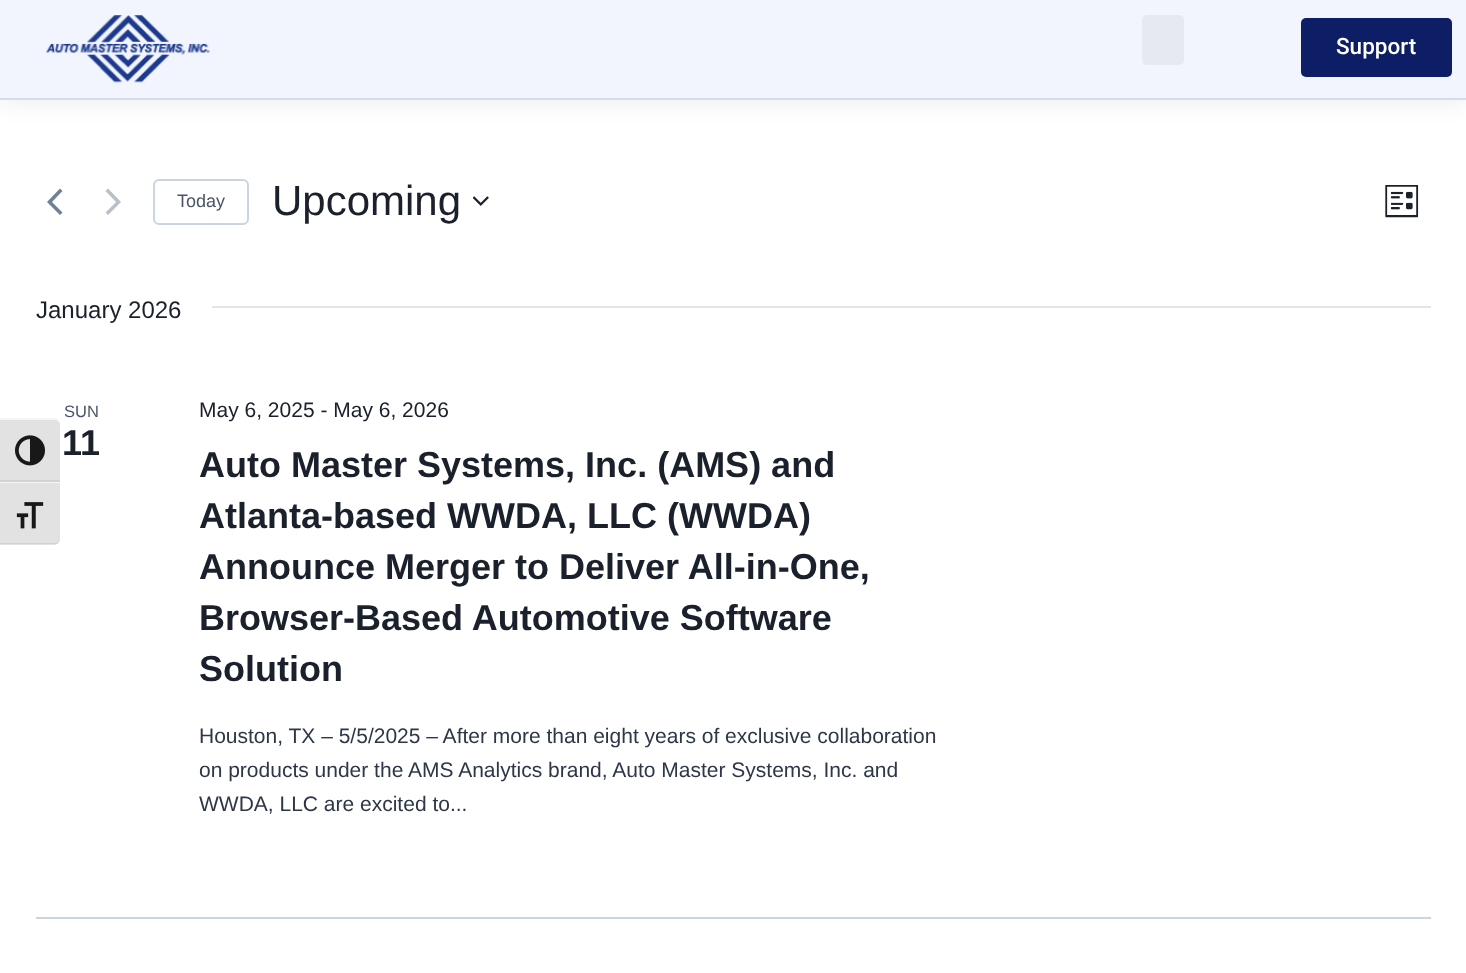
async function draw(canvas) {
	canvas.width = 1466;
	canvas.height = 973;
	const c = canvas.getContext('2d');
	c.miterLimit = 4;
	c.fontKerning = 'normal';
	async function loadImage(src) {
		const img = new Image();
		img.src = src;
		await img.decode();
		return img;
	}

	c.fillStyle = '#fff';
	c.fillRect(0, 0, 1466, 973);
	c.fillStyle = '#e2e2e2';
	c.beginPath();
	c.roundRect(0, 419, 60, 63, [0, 6, 0, 0]);
	c.fill();
	c.fillStyle = '#f5f5f5';
	c.beginPath();
	c.moveTo(0, 420);
	c.lineTo(54, 420);
	c.bezierCurveTo(57, 420, 60, 422, 60, 424);
	c.bezierCurveTo(60, 422, 58, 419, 56, 418);
	c.lineTo(0, 418);
	c.closePath();
	c.fill();
	c.fillStyle = '#d2d2d2';
	c.fillRect(0, 480, 60, 2);
	c.drawImage(await loadImage('img1.png'), 15, 435, 30, 31);
	c.fillStyle = '#e2e2e2';
	c.beginPath();
	c.roundRect(0, 482, 60, 63, [0, 0, 6, 0]);
	c.fill();
	c.fillStyle = '#f5f5f5';
	c.fillRect(0, 482, 60, 1);
	c.fillStyle = '#d2d2d2';
	c.beginPath();
	c.moveTo(0, 543);
	c.lineTo(0, 544);
	c.lineTo(54, 544);
	c.bezierCurveTo(57, 544, 60, 542, 60, 538);
	c.bezierCurveTo(60, 541, 57, 543, 54, 543);
	c.closePath();
	c.fill();
	c.drawImage(await loadImage('img2.png'), 16, 502, 28, 27);
	c.fillStyle = '#00000017';
	c.filter = 'blur(13.5px)';
	c.beginPath();
	c.rect(0, 0, 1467, 99);
	c.fill();
	c.filter = 'none';
	c.fillStyle = '#f2f5fe';
	c.fillRect(0, 0, 1466, 98);
	c.fillStyle = '#d7daea';
	c.fillRect(0, 98, 1466, 2);
	c.drawImage(await loadImage('img3.png'), 46, 15, 164, 68);
	c.fillStyle = '#e6e9f1';
	c.beginPath();
	c.roundRect(1142, 15, 42, 50, 5);
	c.fill();
	c.fillStyle = '#0d1e67';
	c.beginPath();
	c.roundRect(1301, 18, 151, 59, 5);
	c.fill();
	c.font = '500 22.5px Roboto';
	c.fillStyle = '#fff';
	c.fillText('Support', 1336, 54);
	c.fillStyle = '#718096';
	c.beginPath();
	c.moveTo(62.5, 212.5);
	c.lineTo(60, 215);
	c.lineTo(47, 202);
	c.lineTo(60, 188.5);
	c.lineTo(62.5, 191);
	c.lineTo(52, 202);
	c.closePath();
	c.fill();
	c.fillStyle = '#b8c0cb';
	c.beginPath();
	c.moveTo(105.5, 191);
	c.lineTo(108, 188.5);
	c.lineTo(121, 202);
	c.lineTo(108, 215);
	c.lineTo(105.5, 212.5);
	c.lineTo(116, 202);
	c.closePath();
	c.fill();
	c.beginPath();
	c.roundRect(154, 180, 94, 44, 5);
	c.strokeStyle = '#cbd5e0';
	c.lineWidth = 2;
	c.stroke();
	c.font = '18px Liberation Sans';
	c.fillStyle = '#4a5568';
	c.fillText('Today', 177, 207);
	c.font = '42px Liberation Sans';
	c.fillStyle = '#1a202c';
	c.fillText('Upcoming', 272, 215);
	c.drawImage(await loadImage('img4.png'), 473, 196, 16, 10);
	c.drawImage(await loadImage('img5.png'), 1385, 185, 34, 33);
	c.font = '24px Liberation Sans';
	c.fillText('January 2026', 36, 318);
	c.fillStyle = '#e4e4e4';
	c.fillRect(212, 306, 1219, 2);
	c.font = '16.5px Liberation Sans';
	c.fillStyle = '#4a5568';
	c.fillText('SUN', 64, 417);
	c.font = 'bold 36px Liberation Sans';
	c.fillStyle = '#1a202c';
	c.fillText('11', 62, 455);
	c.font = '21px Liberation Sans';
	c.fillText('May 6, 2025 - May 6, 2026', 199, 417);
	c.font = 'bold 36px Liberation Sans';
	for (const [text, x, y] of [
		['Auto Master Systems, Inc. (AMS) and', 199, 477],
		['Atlanta-based WWDA, LLC (WWDA)', 199, 528],
		['Announce Merger to Deliver All-in-One,', 199, 579],
		['Browser-Based Automotive Software', 199, 630],
		['Solution', 199, 681],
	]) {
		c.fillText(text, x, y);
	}
	c.font = '21px Liberation Sans';
	c.fillStyle = '#2d3748';
	for (const [text, x, y] of [
		['Houston, TX – 5/5/2025 – After more than eight years of exclusive collaboration', 199, 743],
		['on products under the AMS Analytics brand, Auto Master Systems, Inc. and', 199, 777],
		['WWDA, LLC are excited to...', 199, 811],
	]) {
		c.fillText(text, x, y);
	}
	c.fillStyle = '#cbd5e0';
	c.fillRect(36, 917, 1395, 2);
}

draw(document.querySelector('canvas'));
